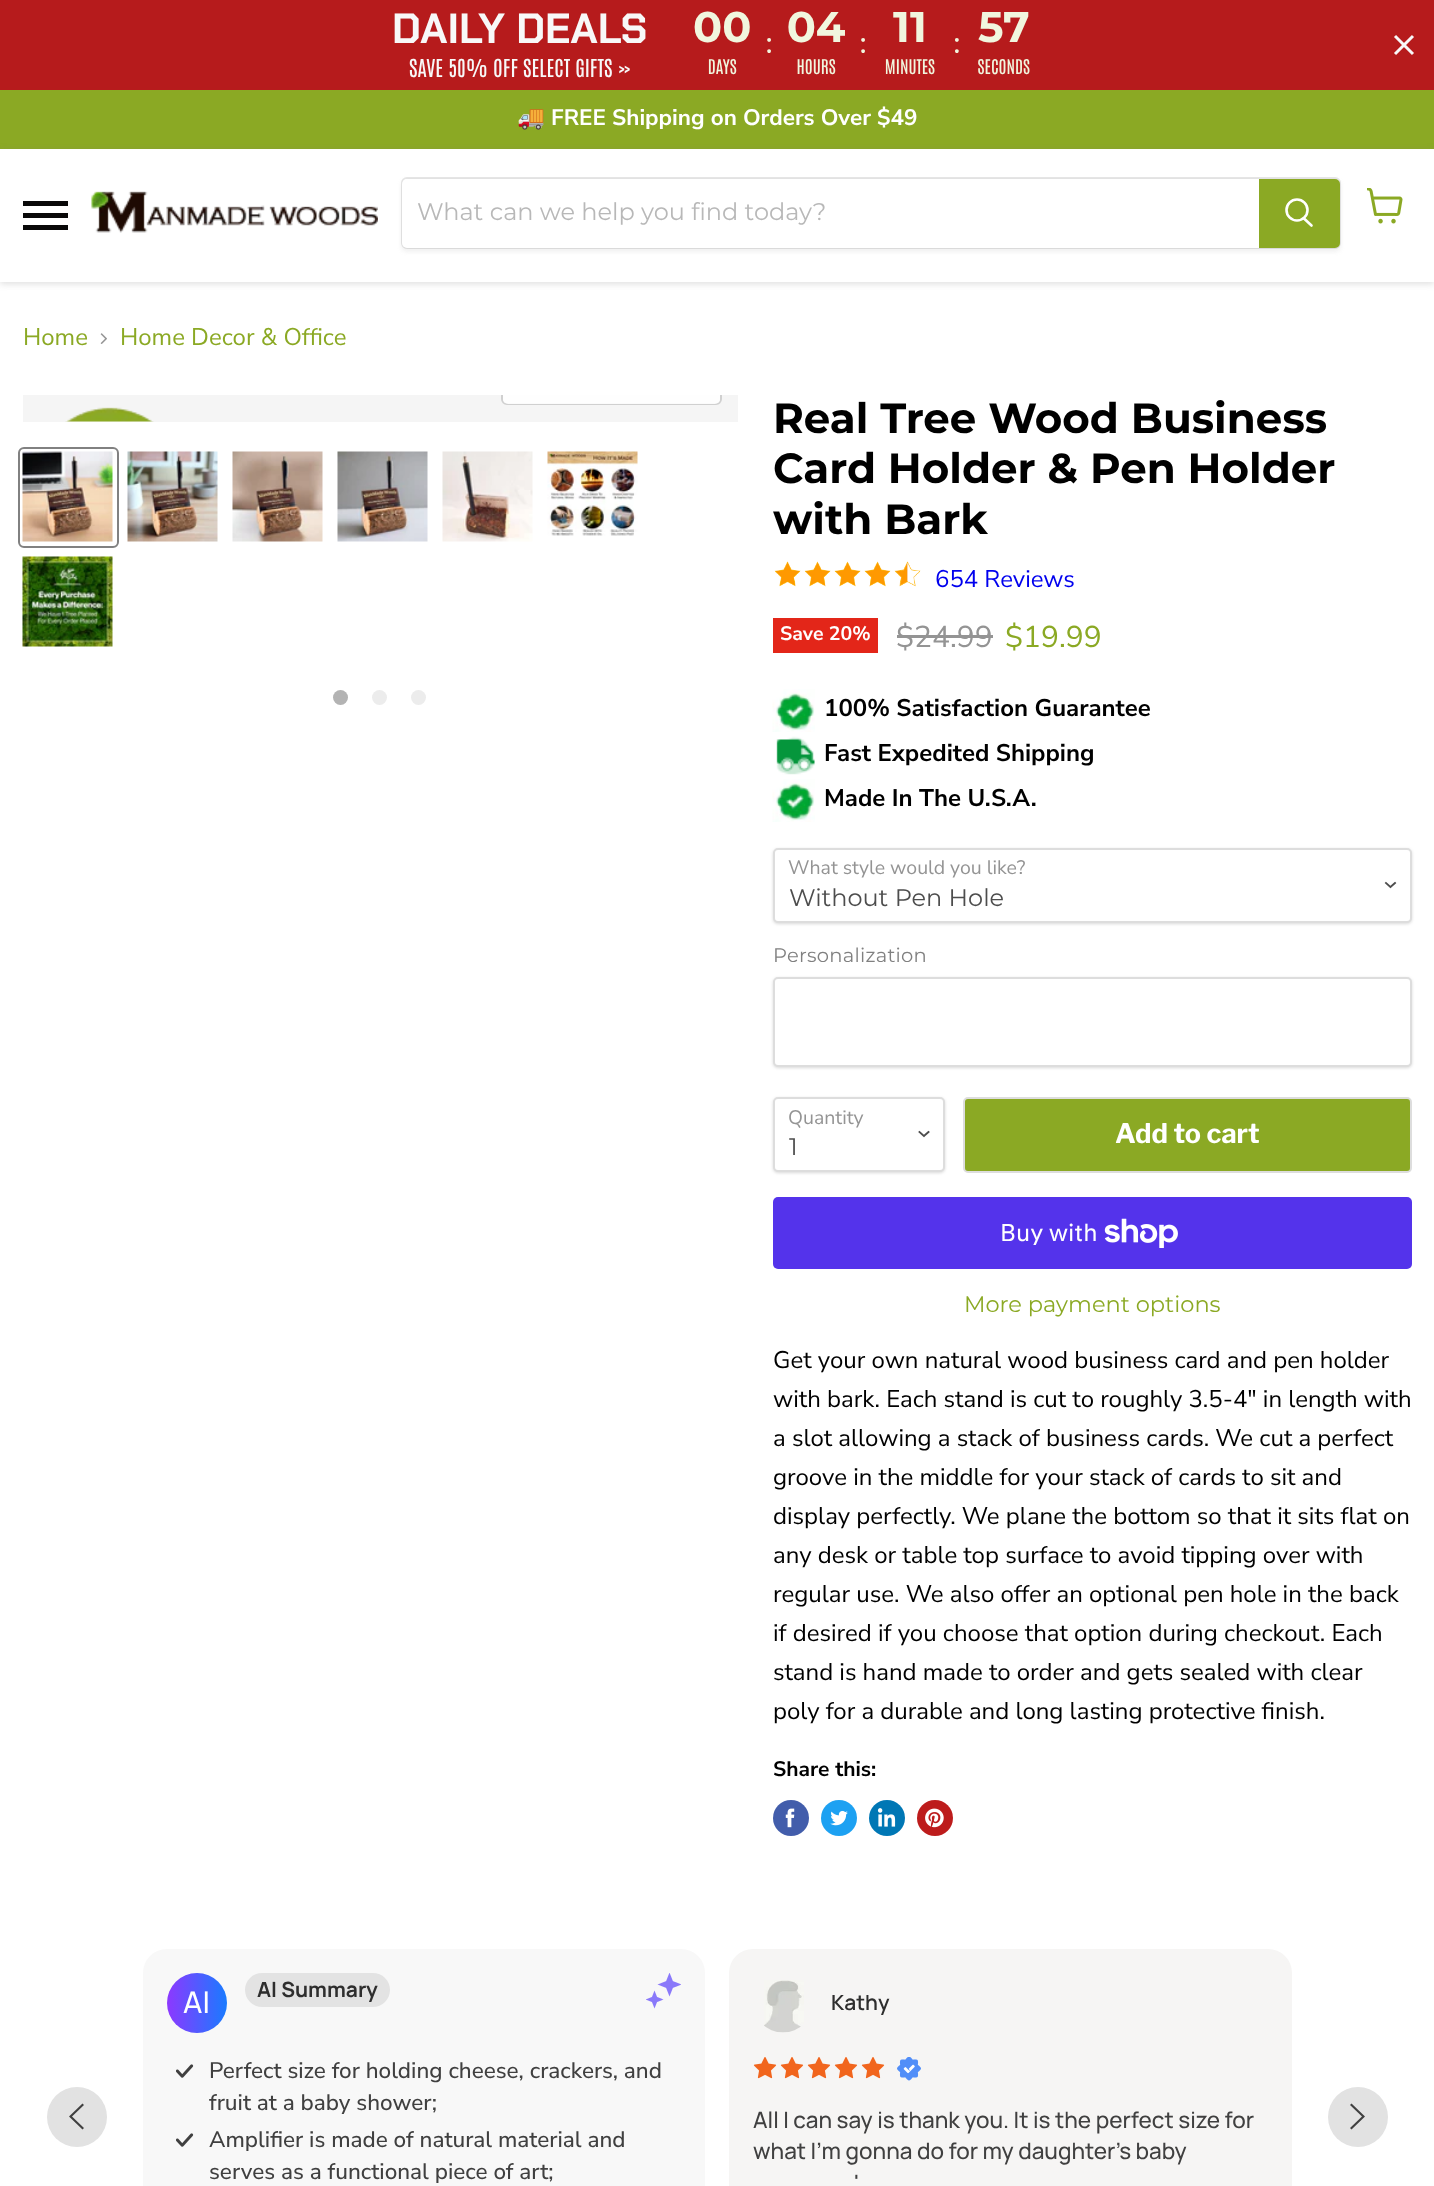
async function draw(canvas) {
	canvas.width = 1434;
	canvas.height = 2186;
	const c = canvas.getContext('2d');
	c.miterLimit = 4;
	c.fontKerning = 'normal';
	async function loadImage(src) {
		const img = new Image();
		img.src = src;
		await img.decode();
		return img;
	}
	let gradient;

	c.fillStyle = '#fff';
	c.fillRect(0, 0, 1434, 2186);
	c.fillStyle = '#b61b1c';
	c.fillRect(0, 0, 1434, 90);
	c.font = 'bold 42px Chakra Petch';
	c.fillStyle = '#f8f8f8';
	c.fillText('DAILY DEALS', 392, 43);
	c.font = '21px Antonio';
	c.fillText('SAVE 50% OFF SELECT GIFTS »', 409, 77);
	c.drawImage(await loadImage('img1.png'), 694, 11, 336, 64);
	c.beginPath();
	c.moveTo(1413, 36);
	c.lineTo(1395, 54);
	c.moveTo(1413, 54);
	c.lineTo(1395, 36);
	c.strokeStyle = '#f8f8f8';
	c.lineWidth = 3;
	c.stroke();
	c.fillStyle = '#8ba924';
	c.fillRect(0, 90, 1434, 59);
	c.font = 'bold 22.5px Noto Color Emoji';
	c.fillStyle = '#fff';
	c.fillText('🚚', 517, 125);
	c.font = 'bold 22.5px Nunito Sans';
	c.fillText('FREE Shipping on Orders Over $49', 551, 125);
	c.fillStyle = '#80808040';
	c.filter = 'blur(3px)';
	c.beginPath();
	c.rect(0, 150, 1434, 134);
	c.fill();
	c.filter = 'none';
	for (const [x, y, w, h, color] of [
		[0, 149, 1434, 133, '#fff'],
		[23, 201, 45, 5, '#090808'],
		[23, 213, 45, 5, '#090808'],
		[23, 225, 45, 5, '#090808'],
	]) {
		c.fillStyle = color;
		c.fillRect(x, y, w, h);
	}
	c.drawImage(await loadImage('img2.png'), 91, 191, 287, 42);
	c.fillStyle = '#8080801c';
	c.filter = 'blur(2px)';
	c.beginPath();
	c.roundRect(401, 180, 940, 72, 6);
	c.fill();
	c.filter = 'none';
	c.beginPath();
	c.roundRect(402, 178, 938, 70, 5);
	c.strokeStyle = '#80808033';
	c.lineWidth = 2;
	c.stroke();
	c.fillStyle = '#fff';
	c.beginPath();
	c.roundRect(402, 179, 857, 69, [5, 0, 0, 5]);
	c.fill();
	c.font = '24px Montserrat';
	c.fillStyle = '#b8b8b8';
	c.fillText('What can we help you find today?', 417, 220);
	c.fillStyle = '#8ba924';
	c.beginPath();
	c.roundRect(1260, 180, 79, 67, [0, 4, 4, 0]);
	c.fill();
	c.strokeStyle = '#8ba924';
	c.stroke();
	c.beginPath();
	c.moveTo(1311.5, 225.5);
	c.lineTo(1304, 218.5);
	c.strokeStyle = '#fff';
	c.lineWidth = 2.6;
	c.lineCap = 'round';
	c.stroke();
	c.beginPath();
	c.arc(1297, 210, 10.5, 0, 2 * Math.PI);
	c.stroke();
	c.drawImage(await loadImage('img3.png'), 1367, 188, 36, 36);
	c.font = '24px Nunito Sans';
	c.fillText('Home', 23, 345);
	c.drawImage(await loadImage('img4.png'), 100, 333, 7, 11);
	c.fillText('Home Decor & Office', 120, 345);
	c.fillStyle = '#f5f5f5';
	c.fillRect(23, 395, 715, 27);
	c.save();
	c.beginPath();
	c.rect(23, 395, 715, 27);
	c.clip();
	c.beginPath();
	c.roundRect(502, 361, 219, 43, 5);
	c.strokeStyle = '#d0d0d0';
	c.lineWidth = 2;
	c.stroke();
	c.restore();
	c.fillStyle = '#ffffffe6';
	c.beginPath();
	c.roundRect(503, 395, 217, 9, [0, 0, 5, 5]);
	c.fill();
	c.drawImage(await loadImage('img5.png'), 65, 407, 89, 15);
	c.beginPath();
	c.roundRect(19, 448, 99, 99, 5);
	c.strokeStyle = '#818181';
	c.lineWidth = 2;
	c.stroke();
	c.drawImage(await loadImage('img6.png'), 22, 451, 91, 91);
	c.drawImage(await loadImage('img7.png'), 127, 451, 91, 91);
	c.drawImage(await loadImage('img8.png'), 232, 451, 91, 91);
	c.drawImage(await loadImage('img9.png'), 337, 451, 91, 91);
	c.drawImage(await loadImage('img10.png'), 442, 451, 91, 91);
	c.drawImage(await loadImage('img11.png'), 547, 451, 91, 85);
	c.drawImage(await loadImage('img12.png'), 22, 556, 91, 91);
	c.fillStyle = '#b3b3b3';
	c.beginPath();
	c.arc(340.5, 697.5, 7.5, 0, 2 * Math.PI);
	c.fill();
	c.fillStyle = '#ececec';
	c.beginPath();
	c.arc(379.5, 697.5, 7.5, 0, 2 * Math.PI);
	c.fill();
	c.beginPath();
	c.arc(418.5, 697.5, 7.5, 0, 2 * Math.PI);
	c.fill();
	c.font = 'bold 42px Montserrat';
	c.fillStyle = '#000';
	for (const [text, x, y] of [
		['Real Tree Wood Business', 773, 433],
		['Card Holder & Pen Holder', 773, 483],
		['with Bark', 773, 534],
	]) {
		c.fillText(text, x, y);
	}
	c.drawImage(await loadImage('img13.png'), 774, 561, 147, 26);
	c.font = '24px Nunito Sans';
	c.fillStyle = '#00e';
	c.fillText('654 Reviews', 935, 587);
	c.fillStyle = '#e32619';
	c.fillRect(773, 618, 105, 35);
	c.font = 'bold 19.5px Nunito Sans';
	c.fillStyle = '#fff';
	c.fillText('Save 20%', 780, 640);
	c.font = '30px Nunito Sans';
	c.fillStyle = '#949494';
	c.fillText('$24.99', 896, 647);
	c.fillRect(897, 635, 96, 3);
	c.fillStyle = '#8ba924';
	c.fillText('$19.99', 1005, 647);
	c.drawImage(await loadImage('img14.png'), 772, 689, 43, 43);
	c.font = 'bold 24px Nunito Sans';
	c.fillStyle = '#000';
	c.fillText('100% Satisfaction Guarantee', 824, 716);
	c.drawImage(await loadImage('img15.png'), 776, 736, 39, 39);
	c.fillText('Fast Expedited Shipping', 824, 761);
	c.drawImage(await loadImage('img14.png'), 772, 779, 43, 43);
	c.fillText('Made In The U.S.A.', 824, 806);
	c.fillStyle = '#00000026';
	c.filter = 'blur(1.5px)';
	c.beginPath();
	c.roundRect(773, 849, 639, 75, 5);
	c.fill();
	c.filter = 'none';
	c.fillStyle = '#fff';
	c.beginPath();
	c.roundRect(774, 849, 637, 73, 4);
	c.fill();
	c.strokeStyle = '#ddd';
	c.stroke();
	c.font = '19.5px Nunito Sans';
	c.fillStyle = '#949494';
	c.fillText('What style would you like?', 788, 874);
	c.beginPath();
	c.moveTo(1390.5, 887);
	c.lineTo(1395, 883);
	c.moveTo(1390.5, 887);
	c.lineTo(1386, 883);
	c.strokeStyle = '#4d4d4d';
	c.lineWidth = 1.9;
	c.lineCap = 'square';
	c.stroke();
	c.font = '24px Montserrat';
	c.fillStyle = '#4d4d4d';
	c.fillText('Without Pen Hole', 789, 906);
	c.letterSpacing = '0.25px';
	c.font = '19.5px Montserrat';
	c.fillStyle = '#808080';
	c.fillText('Personalization', 773, 962);
	c.fillStyle = '#00000026';
	c.filter = 'blur(1.5px)';
	c.beginPath();
	c.roundRect(773, 978, 639, 90, 5);
	c.fill();
	c.filter = 'none';
	c.fillStyle = '#fff';
	c.beginPath();
	c.roundRect(774, 978, 637, 88, 4);
	c.fill();
	c.strokeStyle = '#ddd';
	c.lineWidth = 2;
	c.stroke();
	c.fillStyle = '#00000026';
	c.filter = 'blur(1.5px)';
	c.beginPath();
	c.roundRect(773, 1098, 172, 75, 5);
	c.fill();
	c.filter = 'none';
	c.fillStyle = '#fff';
	c.beginPath();
	c.roundRect(774, 1098, 170, 73, 4);
	c.fill();
	c.stroke();
	c.letterSpacing = '0px';
	c.font = '19.5px Nunito Sans';
	c.fillStyle = '#949494';
	c.fillText('Quantity', 788, 1124);
	c.beginPath();
	c.moveTo(924, 1136);
	c.lineTo(928.5, 1132);
	c.moveTo(924, 1136);
	c.lineTo(919.5, 1132);
	c.strokeStyle = '#4d4d4d';
	c.lineWidth = 1.9;
	c.stroke();
	c.font = '24px Montserrat';
	c.fillStyle = '#4d4d4d';
	c.fillText('1', 789, 1155);
	c.fillStyle = '#8ba924';
	c.beginPath();
	c.roundRect(964, 1098, 447, 74, 4);
	c.fill();
	c.strokeStyle = '#ddd';
	c.lineWidth = 2;
	c.stroke();
	c.font = 'bold 27px Libre Franklin';
	c.fillStyle = '#fff';
	c.fillText('Add to cart', 1115, 1143);
	c.fillStyle = '#5433eb';
	c.beginPath();
	c.roundRect(773, 1197, 639, 72, 5);
	c.fill();
	c.font = '24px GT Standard';
	c.fillStyle = '#fff';
	c.fillText('Buy with', 1000, 1241);
	c.drawImage(await loadImage('img16.png'), 1104, 1218, 74, 30);
	c.font = '22.5px Montserrat';
	c.fillStyle = '#8ba924';
	c.fillText('More payment options', 964, 1312);
	c.font = '24px Nunito Sans';
	c.fillStyle = '#000';
	for (const [text, x, y] of [
		['Get your own natural wood business card and pen holder', 773, 1368],
		['with bark. Each stand is cut to roughly 3.5-4" in length with', 773, 1407],
		['a slot allowing a stack of business cards. We cut a perfect', 773, 1446],
		['groove in the middle for your stack of cards to sit and', 773, 1485],
		['display perfectly. We plane the bottom so that it sits flat on', 773, 1524],
		['any desk or table top surface to avoid tipping over with', 773, 1563],
		['regular use. We also offer an optional pen hole in the back', 773, 1602],
		['if desired if you choose that option during checkout. Each', 773, 1641],
		['stand is hand made to order and gets sealed with clear', 773, 1680],
		['poly for a durable and long lasting protective finish.', 773, 1719],
	]) {
		c.fillText(text, x, y);
	}
	c.font = 'bold 21px Nunito Sans';
	c.fillText('Share this:', 773, 1776);
	c.fillStyle = '#425dab';
	c.beginPath();
	c.arc(791, 1818, 18, 0, 2 * Math.PI);
	c.fill();
	c.drawImage(await loadImage('img17.png'), 785, 1808, 10, 20);
	c.fillStyle = '#1da1f2';
	c.beginPath();
	c.arc(839, 1818, 18, 0, 2 * Math.PI);
	c.fill();
	c.drawImage(await loadImage('img18.png'), 830, 1810, 18, 16);
	c.fillStyle = '#0077b5';
	c.beginPath();
	c.arc(887, 1818, 18, 0, 2 * Math.PI);
	c.fill();
	c.drawImage(await loadImage('img19.png'), 877, 1808, 19, 19);
	c.fillStyle = '#bd1c1c';
	c.beginPath();
	c.arc(935, 1818, 18, 0, 2 * Math.PI);
	c.fill();
	c.drawImage(await loadImage('img20.png'), 925, 1808, 19, 20);
	c.fillStyle = '#e2e2e2';
	c.beginPath();
	c.arc(77, 2117, 30, 0, 2 * Math.PI);
	c.fill();
	c.fillStyle = '#404040';
	c.beginPath();
	c.moveTo(84, 2128);
	c.lineTo(82.5, 2129.5);
	c.lineTo(69, 2116.5);
	c.lineTo(82.5, 2103.5);
	c.lineTo(84, 2105);
	c.lineTo(72, 2116.5);
	c.closePath();
	c.fill();
	c.fillStyle = '#f8f8f8';
	c.beginPath();
	c.roundRect(143, 1949, 562, 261, 24);
	c.fill();
	gradient = c.createLinearGradient(167, 2003, 227, 2003);
	gradient.addColorStop(0, '#8d38ff');
	gradient.addColorStop(1, '#197bff');
	c.fillStyle = gradient;
	c.beginPath();
	c.arc(197, 2003, 30, 0, 2 * Math.PI);
	c.fill();
	c.font = '500 30px Manrope';
	c.fillStyle = '#fff';
	c.fillText('AI', 183, 2013);
	c.fillStyle = '#e3e3e3';
	c.beginPath();
	c.roundRect(245, 1973, 145, 34, 17);
	c.fill();
	c.font = 'bold 21px Manrope';
	c.fillStyle = '#2e2e2e';
	c.fillText('AI Summary', 257, 1997);
	c.drawImage(await loadImage('img21.png'), 646, 1973, 35, 36);
	c.drawImage(await loadImage('img22.png'), 176, 2064, 18, 14);
	c.font = '500 22.5px Nunito Sans';
	c.fillStyle = '#404040';
	c.fillText('Perfect size for holding cheese, crackers, and', 209, 2078);
	c.fillText('fruit at a baby shower;', 209, 2110);
	c.drawImage(await loadImage('img22.png'), 176, 2133, 18, 14);
	c.fillText('Amplifier is made of natural material and', 209, 2147);
	c.fillText('serves as a functional piece of art;', 209, 2179);
	c.fillStyle = '#f6f5f4';
	c.beginPath();
	c.roundRect(729, 1949, 563, 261, 24);
	c.fill();
	c.drawImage(await loadImage('img23.png'), 764, 1980, 40, 53);
	c.font = '600 21px Manrope';
	c.fillStyle = '#2e2e2e';
	c.fillText('Kathy', 831, 2010);
	c.drawImage(await loadImage('img24.png'), 753, 2057, 24, 22);
	c.drawImage(await loadImage('img24.png'), 780, 2057, 24, 22);
	c.drawImage(await loadImage('img24.png'), 807, 2057, 24, 22);
	c.drawImage(await loadImage('img24.png'), 834, 2057, 24, 22);
	c.drawImage(await loadImage('img24.png'), 861, 2057, 24, 22);
	c.drawImage(await loadImage('img25.png'), 897, 2057, 24, 24);
	c.font = '500 22.5px Manrope';
	c.fillStyle = '#404040';
	for (const [text, x, y] of [
		['All I can say is thank you. It is the perfect size for', 753, 2128],
		['what I\'m gonna do for my daughter\'s baby', 753, 2159],
		['\'', 854, 2191],
	]) {
		c.fillText(text, x, y);
	}
	c.fillStyle = '#e2e2e2';
	c.beginPath();
	c.arc(1358, 2117, 30, 0, 2 * Math.PI);
	c.fill();
	c.fillStyle = '#404040';
	c.beginPath();
	c.moveTo(1350, 2105);
	c.lineTo(1351.5, 2103.5);
	c.lineTo(1365, 2116.5);
	c.lineTo(1351.5, 2129.5);
	c.lineTo(1350, 2128);
	c.lineTo(1362, 2116.5);
	c.closePath();
	c.fill();
}

draw(document.querySelector('canvas'));
